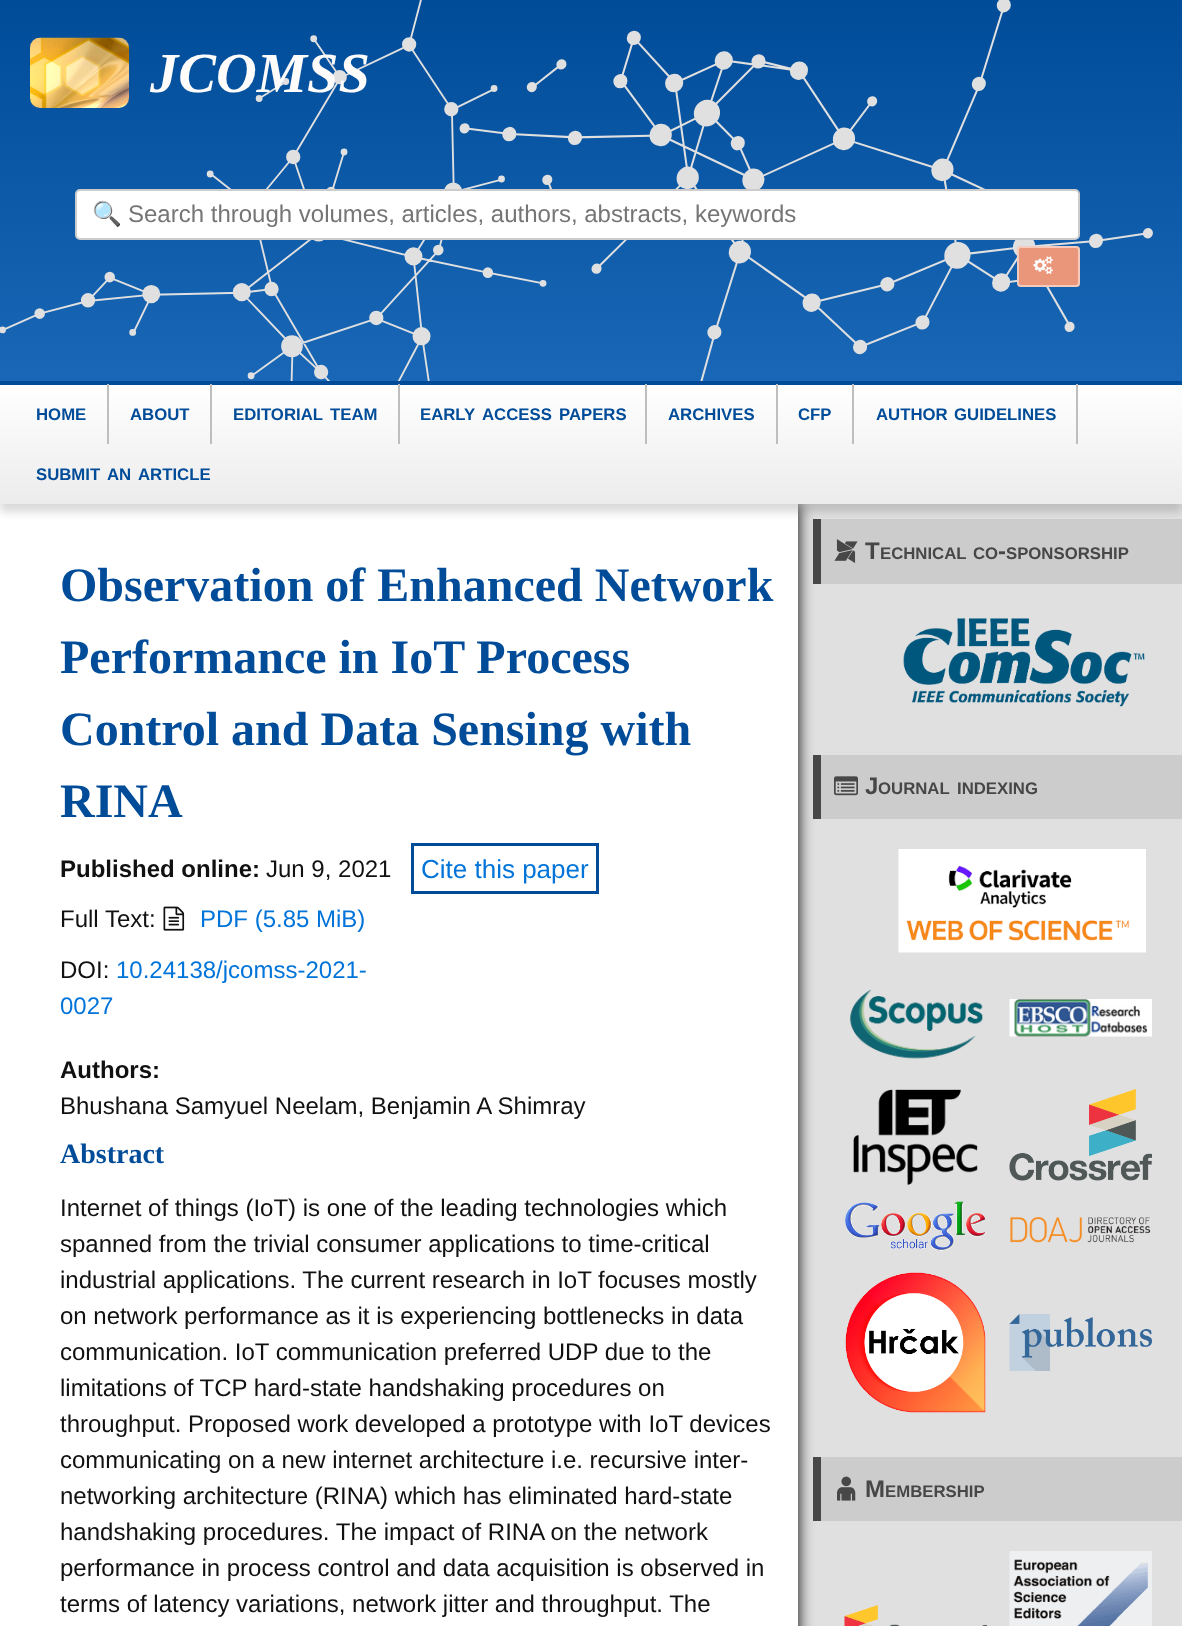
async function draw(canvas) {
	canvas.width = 1182;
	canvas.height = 1626;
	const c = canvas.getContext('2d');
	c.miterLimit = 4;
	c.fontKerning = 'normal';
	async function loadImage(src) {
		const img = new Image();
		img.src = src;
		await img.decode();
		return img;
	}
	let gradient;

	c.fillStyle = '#e0e0e0';
	c.fillRect(0, 0, 1182, 1626);
	gradient = c.createLinearGradient(591, 0, 591, 383);
	gradient.addColorStop(0, '#004c99');
	gradient.addColorStop(1, '#1967b6');
	c.fillStyle = gradient;
	c.fillRect(0, 0, 1182, 381);
	c.drawImage(await loadImage('img1.png'), 0, 0, 1153, 381);
	c.fillStyle = '#004c99';
	c.fillRect(0, 381, 1182, 2);
	c.drawImage(await loadImage('img2.png'), 30, 37, 99, 71);
	c.font = 'italic bold 56.5px Liberation Serif';
	c.fillStyle = '#fdfcfb';
	c.fillText('JCOMSS', 150, 92);
	c.fillStyle = '#fff';
	c.beginPath();
	c.roundRect(76, 190, 1003, 49, 4);
	c.fill();
	c.strokeStyle = '#ccc';
	c.lineWidth = 2;
	c.stroke();
	c.save();
	c.beginPath();
	c.rect(92, 200, 967, 28);
	c.clip();
	c.font = '24px Noto Color Emoji';
	c.fillStyle = '#757575';
	c.fillText('🔍', 92, 222);
	c.restore();
	c.font = '24px Liberation Sans';
	c.fillStyle = '#757575';
	c.fillText('Search through volumes, articles, authors, abstracts, keywords', 128, 222);
	c.fillStyle = '#e9967a';
	c.beginPath();
	c.roundRect(1017, 246, 63, 41, 4);
	c.fill();
	c.beginPath();
	c.roundRect(1018, 247, 61, 39, 3);
	c.strokeStyle = '#ffffff80';
	c.stroke();
	c.drawImage(await loadImage('img3.png'), 1033, 256, 20, 18);
	c.fillStyle = '#000';
	c.filter = 'blur(7.5px)';
	c.beginPath();
	c.rect(0, 504, 798, 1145);
	c.fill();
	c.filter = 'none';
	for (const [x, y, w, h, color] of [
		[0, 504, 798, 1122, '#fff'],
		[821, 519, 361, 65, '#ccc'],
		[813, 519, 8, 65, '#474747'],
	]) {
		c.fillStyle = color;
		c.fillRect(x, y, w, h);
	}
	c.fillStyle = '#00000026';
	c.filter = 'blur(4px)';
	c.beginPath();
	c.rect(0, 390, 1182, 122);
	c.fill();
	c.filter = 'none';
	gradient = c.createLinearGradient(591, 384, 591, 504);
	gradient.addColorStop(0, '#fff');
	gradient.addColorStop(1, '#ececec');
	c.fillStyle = gradient;
	c.fillRect(0, 385, 1182, 119);
	c.fillStyle = '#004c99';
	c.fillRect(0, 383, 1182, 2);
	c.fillStyle = '#bebebe';
	c.fillRect(107, 384, 2, 60);
	c.font = 'bold 16.75px Liberation Sans';
	c.fillStyle = '#004c99';
	c.fillText('HOME', 36, 420);
	c.fillStyle = '#bebebe';
	c.fillRect(210, 384, 2, 60);
	c.fillStyle = '#004c99';
	c.fillText('ABOUT', 130, 420);
	c.fillStyle = '#bebebe';
	c.fillRect(398, 384, 2, 60);
	c.fillStyle = '#004c99';
	c.fillText('EDITORIAL', 233, 420);
	c.fillText('TEAM', 330, 420);
	c.fillStyle = '#bebebe';
	c.fillRect(645, 384, 2, 60);
	c.fillStyle = '#004c99';
	for (const [text, x, y] of [
		['EARLY', 420, 420],
		['ACCESS', 482, 420],
		['PAPERS', 559, 420],
	]) {
		c.fillText(text, x, y);
	}
	c.fillStyle = '#bebebe';
	c.fillRect(776, 384, 2, 60);
	c.fillStyle = '#004c99';
	c.fillText('ARCHIVES', 668, 420);
	c.fillStyle = '#bebebe';
	c.fillRect(852, 384, 2, 60);
	c.fillStyle = '#004c99';
	c.fillText('CFP', 798, 420);
	c.fillStyle = '#bebebe';
	c.fillRect(1076, 384, 2, 60);
	c.fillStyle = '#004c99';
	for (const [text, x, y] of [
		['AUTHOR', 876, 420],
		['GUIDELINES', 954, 420],
		['SUBMIT', 36, 480],
		['AN', 107, 480],
		['ARTICLE', 138, 480],
	]) {
		c.fillText(text, x, y);
	}
	c.font = 'bold 48px Liberation Serif';
	for (const [text, x, y] of [
		['Observation of Enhanced Network', 60, 601],
		['Performance in IoT Process', 60, 673],
		['Control and Data Sensing with', 60, 745],
		['RINA', 60, 817],
	]) {
		c.fillText(text, x, y);
	}
	c.font = 'bold 24px Liberation Sans';
	c.fillStyle = '#111';
	c.fillText('Published online:', 60, 877);
	c.font = '24px Liberation Sans';
	c.fillText('Jun 9, 2021', 266, 877);
	c.fillText('Full Text:', 60, 927);
	c.drawImage(await loadImage('img4.png'), 163, 906, 22, 25);
	c.fillStyle = '#0074d9';
	c.fillText('PDF (5.85 MiB)', 200, 927);
	c.fillStyle = '#111';
	c.fillText('DOI:', 60, 978);
	c.fillStyle = '#0074d9';
	c.fillText('10.24138/jcomss-2021-', 116, 978);
	c.fillText('0027', 60, 1014);
	c.strokeStyle = '#004c99';
	c.lineWidth = 3;
	c.strokeRect(412.5, 844.5, 185, 48);
	c.font = '26px Liberation Sans';
	c.fillText('Cite this paper', 421, 878);
	c.font = 'bold 24px Liberation Sans';
	c.fillStyle = '#111';
	c.fillText('Authors:', 60, 1078);
	c.font = '24px Liberation Sans';
	c.fillText('Bhushana Samyuel Neelam, Benjamin A Shimray', 60, 1114);
	c.font = 'bold 28px Liberation Serif';
	c.fillStyle = '#004c99';
	c.fillText('Abstract', 60, 1163);
	c.font = '24px Liberation Sans';
	c.fillStyle = '#111';
	for (const [text, x, y] of [
		['Internet of things (IoT) is one of the leading technologies which', 60, 1216],
		['spanned from the trivial consumer applications to time-critical', 60, 1252],
		['industrial applications. The current research in IoT focuses mostly', 60, 1288],
		['on network performance as it is experiencing bottlenecks in data', 60, 1324],
		['communication. IoT communication preferred UDP due to the', 60, 1360],
		['limitations of TCP hard-state handshaking procedures on', 60, 1396],
		['throughput. Proposed work developed a prototype with IoT devices', 60, 1432],
		['communicating on a new internet architecture i.e. recursive inter-', 60, 1468],
		['networking architecture (RINA) which has eliminated hard-state', 60, 1504],
		['handshaking procedures. The impact of RINA on the network', 60, 1540],
		['performance in process control and data acquisition is observed in', 60, 1576],
		['terms of latency variations, network jitter and throughput. The', 60, 1612],
	]) {
		c.fillText(text, x, y);
	}
	c.drawImage(await loadImage('img5.png'), 834, 539, 24, 24);
	c.font = 'bold 24px Liberation Sans';
	c.fillStyle = '#474747';
	c.fillText('T', 865, 559);
	c.font = 'bold 16.75px Liberation Sans';
	c.fillText('ECHNICAL', 880, 559);
	c.fillText('CO', 973, 559);
	c.font = 'bold 24px Liberation Sans';
	c.fillText('-', 998, 559);
	c.font = 'bold 16.75px Liberation Sans';
	c.fillText('SPONSORSHIP', 1006, 559);
	c.drawImage(await loadImage('img6.png'), 903, 618, 242, 89);
	c.fillStyle = '#ccc';
	c.fillRect(821, 755, 361, 64);
	c.fillStyle = '#474747';
	c.fillRect(813, 755, 8, 64);
	c.drawImage(await loadImage('img7.png'), 834, 776, 24, 20);
	c.font = 'bold 24px Liberation Sans';
	c.fillText('J', 865, 794);
	c.font = 'bold 16.75px Liberation Sans';
	c.fillText('OURNAL', 878, 794);
	c.fillText('INDEXING', 957, 794);
	c.drawImage(await loadImage('img8.png'), 898, 849, 248, 104);
	c.drawImage(await loadImage('img9.png'), 850, 989, 133, 70);
	c.drawImage(await loadImage('img10.png'), 1009, 999, 143, 38);
	c.drawImage(await loadImage('img11.png'), 853, 1089, 125, 96);
	c.drawImage(await loadImage('img12.png'), 1009, 1089, 143, 92);
	c.drawImage(await loadImage('img13.png'), 845, 1201, 142, 50);
	c.drawImage(await loadImage('img14.png'), 1010, 1216, 141, 27);
	c.drawImage(await loadImage('img15.png'), 845, 1272, 141, 141);
	c.drawImage(await loadImage('img16.png'), 1009, 1314, 143, 57);
	c.fillStyle = '#ccc';
	c.fillRect(821, 1457, 361, 64);
	c.fillStyle = '#474747';
	c.fillRect(813, 1457, 8, 64);
	c.drawImage(await loadImage('img17.png'), 837, 1476, 19, 25);
	c.font = 'bold 24px Liberation Sans';
	c.fillText('M', 865, 1497);
	c.font = 'bold 16.75px Liberation Sans';
	c.fillText('EMBERSHIP', 885, 1497);
	c.drawImage(await loadImage('img18.png'), 844, 1605, 143, 21);
	c.drawImage(await loadImage('img19.png'), 1009, 1551, 143, 75);
}

draw(document.querySelector('canvas'));
